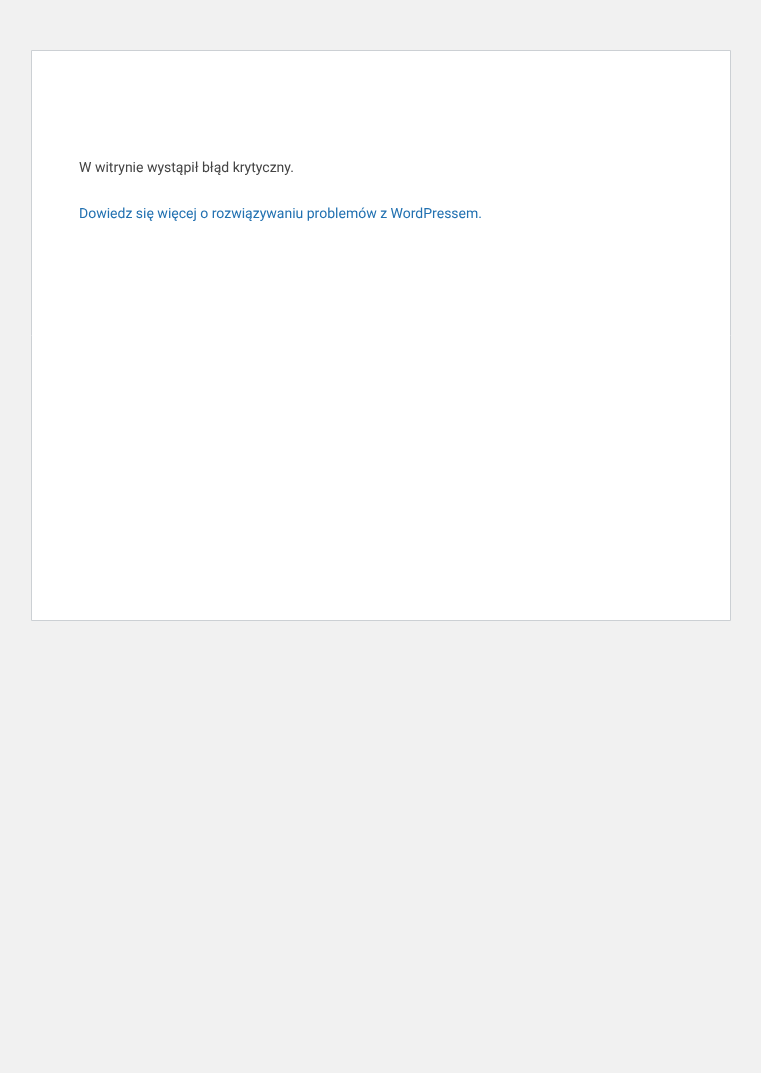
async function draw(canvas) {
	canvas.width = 761;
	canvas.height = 1073;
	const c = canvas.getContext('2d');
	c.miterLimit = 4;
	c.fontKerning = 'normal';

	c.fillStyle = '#f1f1f1';
	c.fillRect(0, 0, 761, 1073);
	c.fillStyle = '#fff';
	c.beginPath();
	c.rect(31.5, 50.5, 699, 570);
	c.fill();
	c.strokeStyle = '#ccd0d4';
	c.stroke();
	c.font = '14px Roboto';
	c.fillStyle = '#444';
	c.fillText('W witrynie wystąpił błąd krytyczny.', 79, 172);
	c.fillStyle = '#2271b1';
	c.fillText('Dowiedz się więcej o rozwiązywaniu problemów z WordPressem.', 79, 218);
}

draw(document.querySelector('canvas'));
